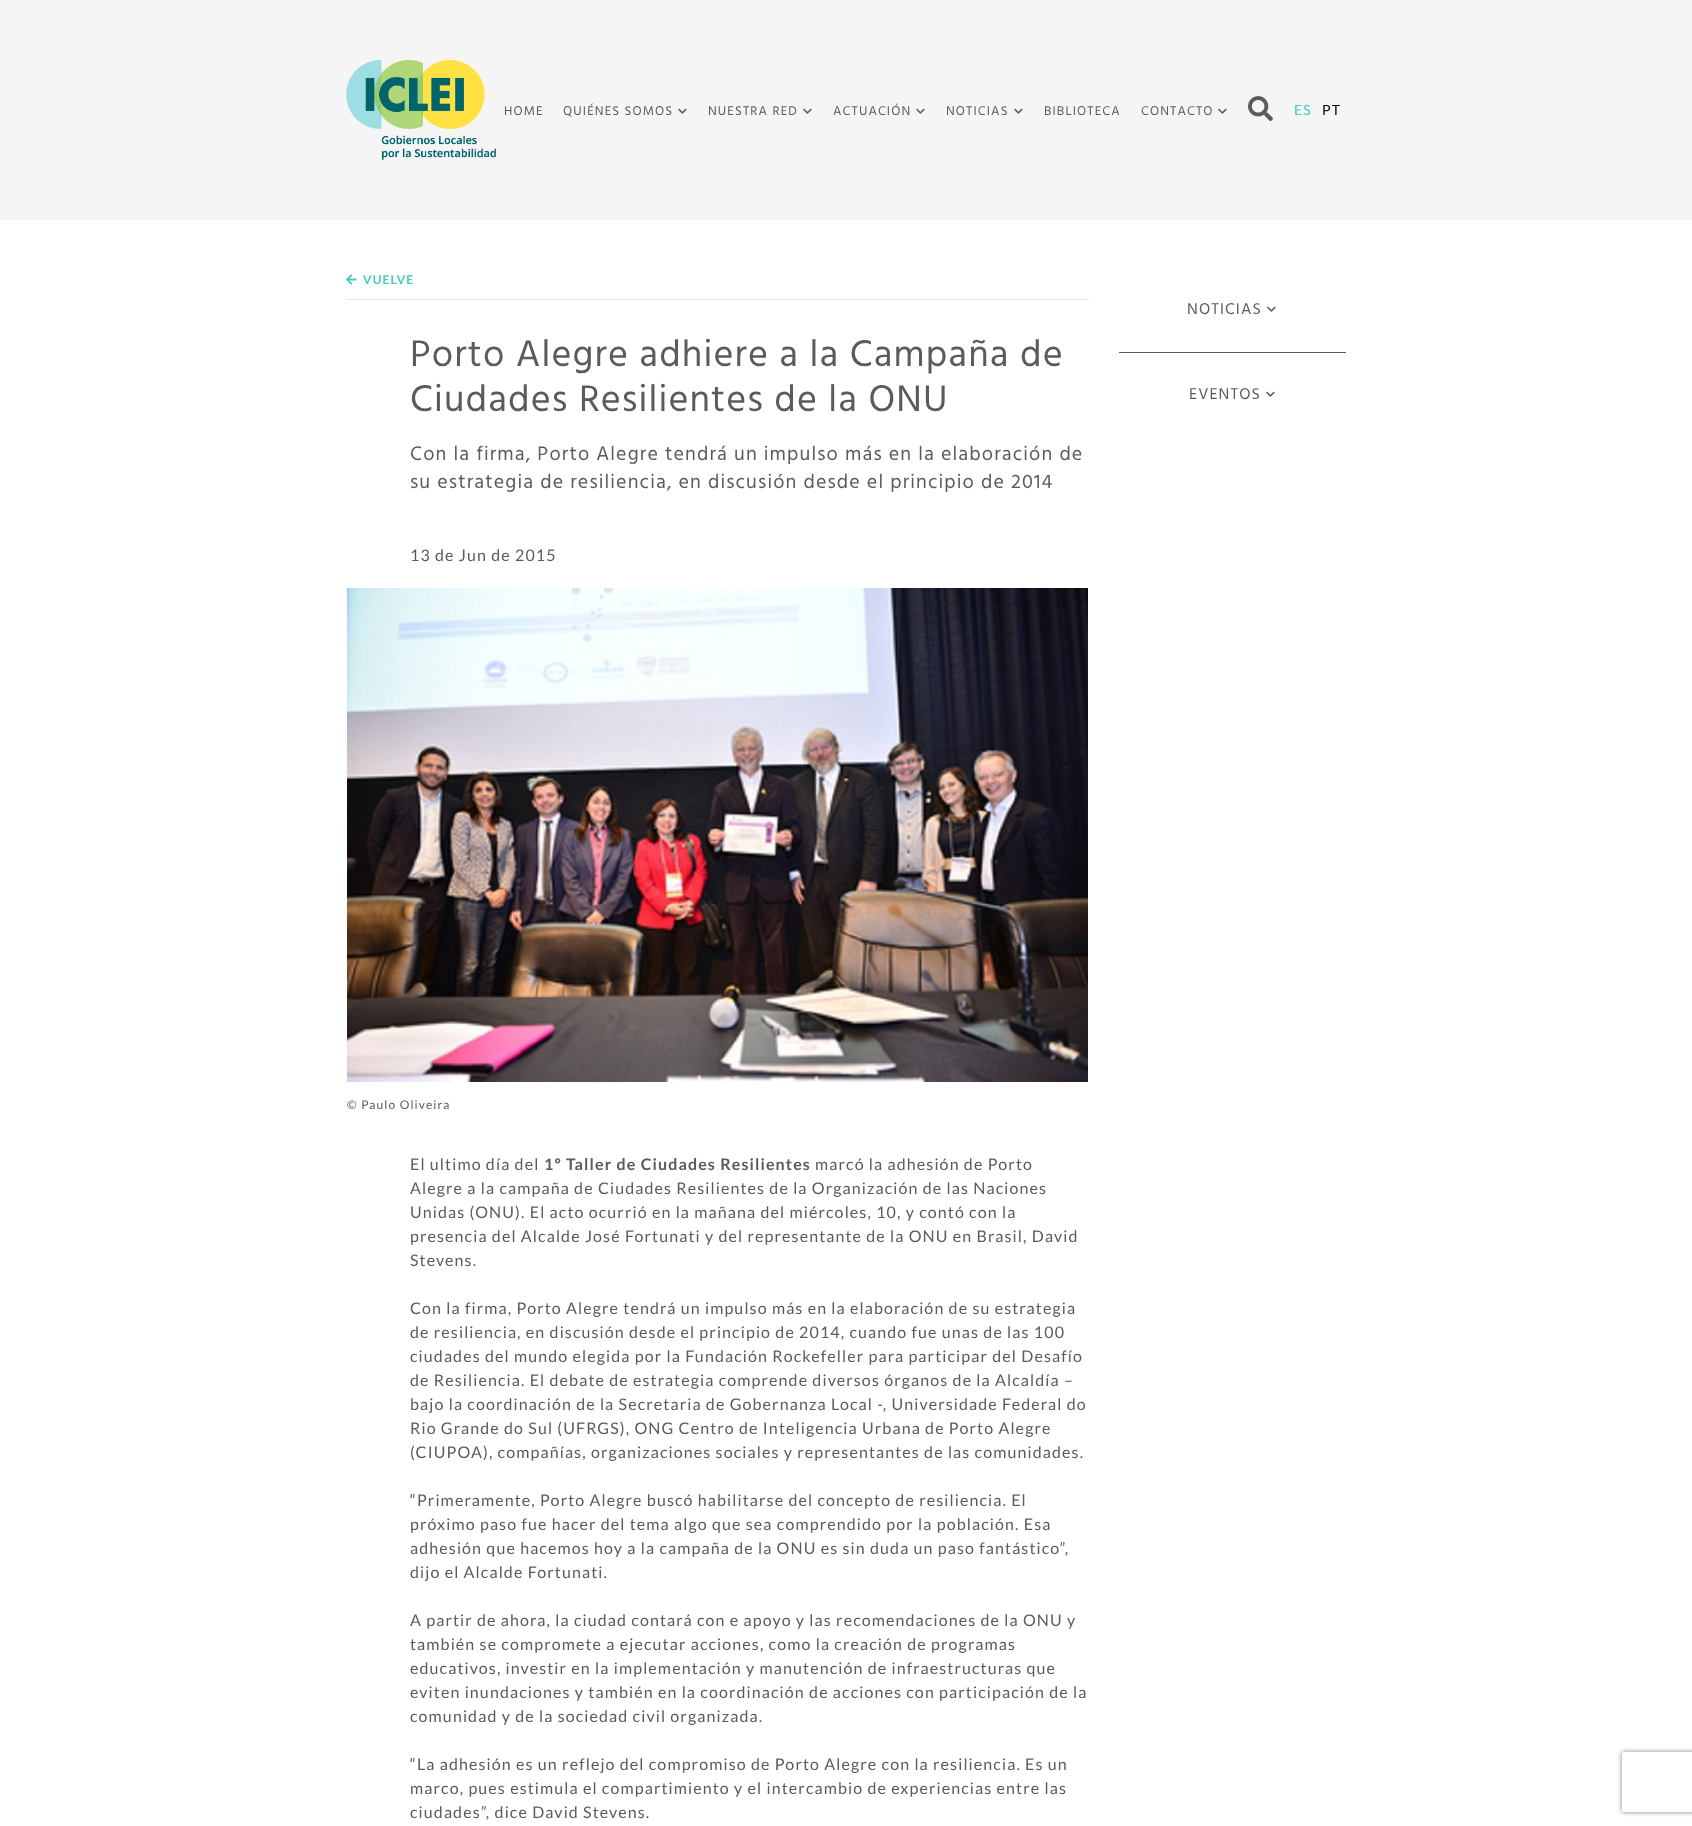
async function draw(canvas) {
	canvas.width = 1692;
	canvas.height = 1826;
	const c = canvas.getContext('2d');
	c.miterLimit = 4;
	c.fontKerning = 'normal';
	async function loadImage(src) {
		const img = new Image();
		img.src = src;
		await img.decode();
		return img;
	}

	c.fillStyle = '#fff';
	c.fillRect(0, 0, 1692, 1826);
	c.fillStyle = '#f5f5f5';
	c.fillRect(0, 0, 1692, 220);
	c.drawImage(await loadImage('img1.png'), 346, 60, 150, 100);
	c.letterSpacing = '1.12px';
	c.font = '13px Hind';
	c.fillStyle = '#5b5b5b';
	c.fillText('HOME', 504, 115);
	c.fillText('QUIÉNES SOMOS', 563, 115);
	c.drawImage(await loadImage('img2.png'), 678, 108, 9, 6);
	c.fillText('NUESTRA RED', 708, 115);
	c.drawImage(await loadImage('img2.png'), 803, 108, 9, 6);
	c.fillText('ACTUACIÓN', 833, 115);
	c.drawImage(await loadImage('img2.png'), 916, 108, 9, 6);
	c.fillText('NOTICIAS', 946, 115);
	c.drawImage(await loadImage('img2.png'), 1014, 108, 9, 6);
	c.fillText('BIBLIOTECA', 1044, 115);
	c.fillText('CONTACTO', 1141, 115);
	c.drawImage(await loadImage('img2.png'), 1218, 108, 9, 6);
	c.drawImage(await loadImage('img3.png'), 1248, 96, 25, 26);
	c.font = '14px Lato';
	c.fillStyle = '#43cbc2';
	c.fillText('ES', 1294, 115);
	c.fillStyle = '#000';
	c.fillText('PT', 1322, 115);
	c.drawImage(await loadImage('img4.png'), 346, 274, 11, 11);
	c.font = 'bold 12px Lato';
	c.fillStyle = '#43cbc2';
	c.fillText('VUELVE', 363, 284);
	c.fillStyle = '#e7e9f0';
	c.fillRect(346, 299, 743, 1);
	c.font = '38px Hind';
	c.fillStyle = '#5b5b5b';
	c.fillText('Porto Alegre adhiere a la Campaña de', 410, 366);
	c.fillText('Ciudades Resilientes de la ONU', 410, 411);
	c.font = '20px Hind';
	c.fillText('Con la firma, Porto Alegre tendrá un impulso más en la elaboración de', 410, 460);
	c.fillText('su estrategia de resiliencia, en discusión desde el principio de 2014', 410, 488);
	c.font = '16px Lato';
	c.fillText('13 de Jun de 2015', 410, 561);
	c.drawImage(await loadImage('img5.png'), 347, 588, 741, 494);
	c.font = '12px Lato';
	c.fillText('© Paulo Oliveira', 347, 1109);
	c.font = '16px Lato';
	c.fillText('El ultimo día del', 410, 1170);
	c.font = 'bold 16px Lato';
	c.fillText('1º Taller de Ciudades Resilientes', 544, 1170);
	c.font = '16px Lato';
	for (const [text, x, y] of [
		['marcó la adhesión de Porto', 815, 1170],
		['Alegre a la campaña de Ciudades Resilientes de la Organización de las Naciones', 410, 1194],
		['Unidas (ONU). El acto ocurrió en la mañana del miércoles, 10, y contó con la', 410, 1218],
		['presencia del Alcalde José Fortunati y del representante de la ONU en Brasil, David', 410, 1242],
		['Stevens.', 410, 1266],
		['Con la firma, Porto Alegre tendrá un impulso más en la elaboración de su estrategia', 410, 1314],
		['de resiliencia, en discusión desde el principio de 2014, cuando fue unas de las 100', 410, 1338],
		['ciudades del mundo elegida por la Fundación Rockefeller para participar del Desafío', 410, 1362],
		['de Resiliencia. El debate de estrategia comprende diversos órganos de la Alcaldía –', 410, 1386],
		['bajo la coordinación de la Secretaria de Gobernanza Local -, Universidade Federal do', 410, 1410],
		['Rio Grande do Sul (UFRGS), ONG Centro de Inteligencia Urbana de Porto Alegre', 410, 1434],
		['(CIUPOA), compañías, organizaciones sociales y representantes de las comunidades.', 410, 1458],
		['“Primeramente, Porto Alegre buscó habilitarse del concepto de resiliencia. El', 410, 1506],
		['próximo paso fue hacer del tema algo que sea comprendido por la población. Esa', 410, 1530],
		['adhesión que hacemos hoy a la campaña de la ONU es sin duda un paso fantástico”,', 410, 1554],
		['dijo el Alcalde Fortunati.', 410, 1578],
		['A partir de ahora, la ciudad contará con e apoyo y las recomendaciones de la ONU y', 410, 1626],
		['también se compromete a ejecutar acciones, como la creación de programas', 410, 1650],
		['educativos, investir en la implementación y manutención de infraestructuras que', 410, 1674],
		['eviten inundaciones y también en la coordinación de acciones con participación de la', 410, 1698],
		['comunidad y de la sociedad civil organizada.', 410, 1722],
		['“La adhesión es un reflejo del compromiso de Porto Alegre con la resiliencia. Es un', 410, 1770],
		['marco, pues estimula el compartimiento y el intercambio de experiencias entre las', 410, 1794],
		['ciudades”, dice David Stevens.', 410, 1818],
	]) {
		c.fillText(text, x, y);
	}
	c.fillRect(1119, 352, 227, 1);
	c.font = '16px Hind';
	c.fillText('NOTICIAS', 1187, 314);
	c.drawImage(await loadImage('img6.png'), 1267, 306, 9, 6);
	c.fillText('EVENTOS', 1189, 399);
	c.drawImage(await loadImage('img6.png'), 1266, 391, 9, 6);
	c.save();
	c.beginPath();
	c.moveTo(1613, 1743);
	c.lineTo(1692, 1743);
	c.lineTo(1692, 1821);
	c.lineTo(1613, 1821);
	c.closePath();
	c.moveTo(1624, 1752);
	c.lineTo(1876, 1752);
	c.bezierCurveTo(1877, 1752, 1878, 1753, 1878, 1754);
	c.lineTo(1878, 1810);
	c.bezierCurveTo(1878, 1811, 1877, 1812, 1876, 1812);
	c.lineTo(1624, 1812);
	c.bezierCurveTo(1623, 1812, 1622, 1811, 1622, 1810);
	c.lineTo(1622, 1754);
	c.bezierCurveTo(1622, 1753, 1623, 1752, 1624, 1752);
	c.closePath();
	c.clip('evenodd');
	c.fillStyle = '#808080';
	c.filter = 'blur(2.5px)';
	c.beginPath();
	c.roundRect(1622, 1752, 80, 60, 2);
	c.fill();
	c.filter = 'none';
	c.restore();
}

draw(document.querySelector('canvas'));
